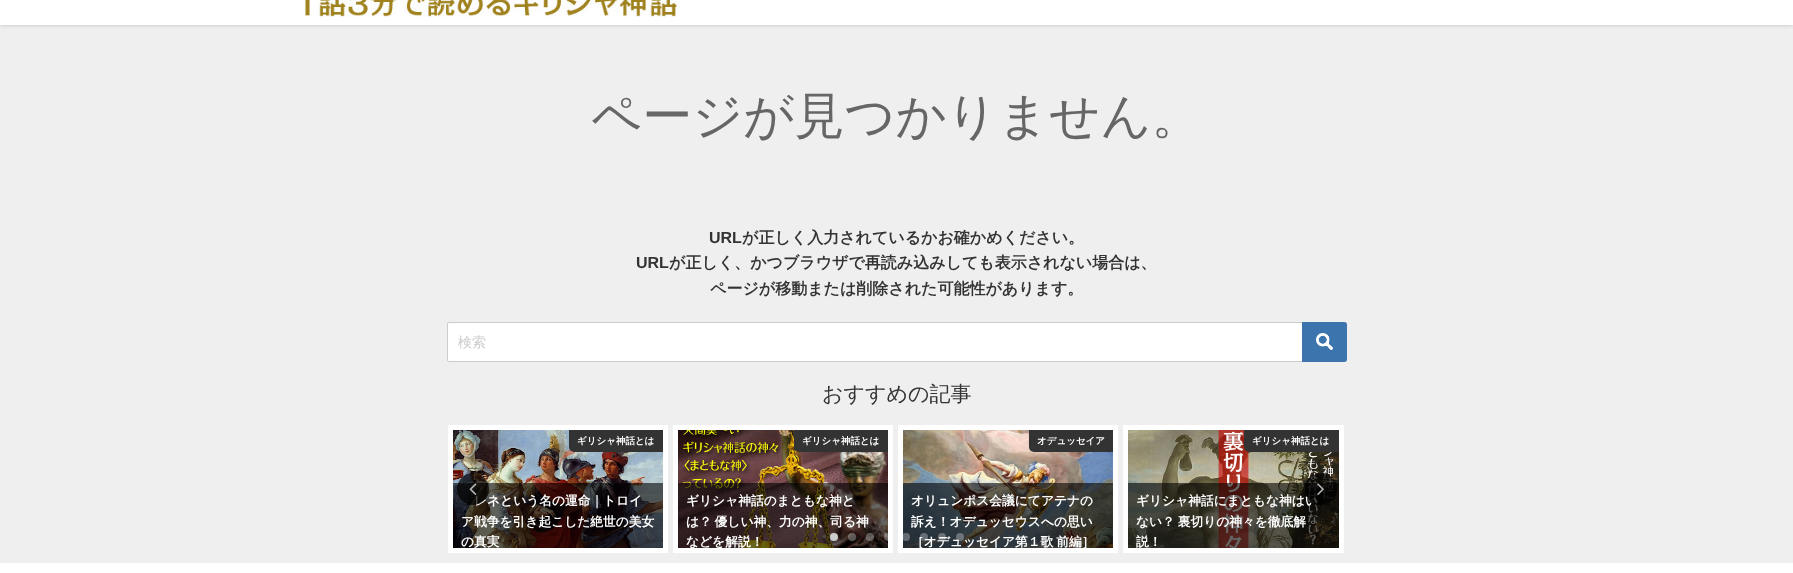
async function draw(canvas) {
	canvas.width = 1793;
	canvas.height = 573;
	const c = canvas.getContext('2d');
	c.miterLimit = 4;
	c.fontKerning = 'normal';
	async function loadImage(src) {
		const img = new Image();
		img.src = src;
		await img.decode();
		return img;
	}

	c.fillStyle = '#efefef';
	c.fillRect(0, 0, 1793, 573);
	c.fillStyle = '#00000033';
	c.filter = 'blur(2px)';
	c.beginPath();
	c.rect(0, -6, 1793, 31);
	c.fill();
	c.filter = 'none';
	c.fillStyle = '#fff';
	c.fillRect(0, 0, 1793, 25);
	c.drawImage(await loadImage('img1.png'), 304, 0, 373, 17);
	c.font = '500 50px WenQuanYi Zen Hei';
	c.fillStyle = '#666';
	c.fillText('ページが見つかりません。', 591, 133);
	c.font = 'bold 16px Liberation Sans';
	c.fillStyle = '#333';
	c.fillText('URL', 709, 243);
	c.font = 'bold 16px WenQuanYi Zen Hei';
	c.fillText('が正しく入力されているかお確かめください。', 742, 243);
	c.font = 'bold 16px Liberation Sans';
	c.fillText('URL', 636, 268);
	c.font = 'bold 16px WenQuanYi Zen Hei';
	c.fillText('が正しく、かつブラウザで再読み込みしても表示されない場合は、', 669, 268);
	c.fillText('ページが移動または削除された可能性があります。', 710, 294);
	c.fillStyle = '#fff';
	c.beginPath();
	c.roundRect(447.5, 322.5, 899, 39, 1.5);
	c.fill();
	c.strokeStyle = '#ccc';
	c.stroke();
	c.font = '500 14px WenQuanYi Zen Hei';
	c.fillStyle = '#ccc';
	c.fillText('検索', 458, 347);
	c.fillStyle = '#3c74ad';
	c.beginPath();
	c.roundRect(1302, 322, 45, 40, [0, 3, 3, 0]);
	c.fill();
	c.drawImage(await loadImage('img2.png'), 1316, 333, 17, 17);
	c.font = '500 21px WenQuanYi Zen Hei';
	c.fillStyle = '#333';
	c.fillText('おすすめの記事', 822, 401);
	c.fillStyle = '#fff';
	c.fillRect(448, 425, 220, 128);
	c.drawImage(await loadImage('img3.png'), 453, 430, 210, 118);
	c.fillStyle = '#333';
	c.beginPath();
	c.roundRect(569, 430, 94, 22, [0, 0, 0, 5]);
	c.fill();
	c.font = 'bold 9.5px WenQuanYi Zen Hei';
	c.fillStyle = '#fff';
	c.fillText('ギリシャ神話とは', 577, 444);
	c.fillStyle = '#00000099';
	c.fillRect(453, 483, 210, 65);
	c.font = 'bold 12.75px WenQuanYi Zen Hei';
	c.fillStyle = '#fff';
	for (const [text, x, y] of [
		['レネという名の運命｜トロイ', 474, 505],
		['ア戦争を引き起こした絶世の美女', 461, 526],
		['の真実', 461, 546],
	]) {
		c.fillText(text, x, y);
	}
	c.fillRect(673, 425, 220, 128);
	c.drawImage(await loadImage('img4.png'), 678, 430, 210, 118);
	c.fillStyle = '#333';
	c.beginPath();
	c.roundRect(794, 430, 94, 22, [0, 0, 0, 5]);
	c.fill();
	c.font = 'bold 9.5px WenQuanYi Zen Hei';
	c.fillStyle = '#fff';
	c.fillText('ギリシャ神話とは', 802, 444);
	c.fillStyle = '#00000099';
	c.fillRect(678, 483, 210, 65);
	c.font = 'bold 12.75px WenQuanYi Zen Hei';
	c.fillStyle = '#fff';
	c.fillText('ギリシャ神話のまともな神と', 686, 505);
	c.wordSpacing = '-1px';
	c.fillText('は？ 優しい神、力の神、司る神', 686, 526);
	c.wordSpacing = '0px';
	c.fillText('などを解説！', 686, 546);
	c.fillRect(898, 425, 220, 128);
	c.drawImage(await loadImage('img5.png'), 903, 430, 210, 118);
	c.fillStyle = '#333';
	c.beginPath();
	c.roundRect(1029, 430, 84, 22, [0, 0, 0, 5]);
	c.fill();
	c.font = 'bold 9.5px WenQuanYi Zen Hei';
	c.fillStyle = '#fff';
	c.fillText('オデュッセイア', 1037, 444);
	c.fillStyle = '#00000099';
	c.fillRect(903, 483, 210, 65);
	c.font = 'bold 12.75px WenQuanYi Zen Hei';
	c.fillStyle = '#fff';
	c.fillText('オリュンポス会議にてアテナの', 911, 505);
	c.fillText('訴え！オデュッセウスへの思い', 911, 526);
	c.wordSpacing = '-1px';
	c.fillText('［オデュッセイア第１歌 前編］', 911, 546);
	c.fillRect(1123, 425, 221, 128);
	c.drawImage(await loadImage('img6.png'), 1128, 430, 211, 118);
	c.fillStyle = '#333';
	c.beginPath();
	c.roundRect(1244, 430, 95, 22, [0, 0, 0, 5]);
	c.fill();
	c.wordSpacing = '0px';
	c.font = 'bold 9.5px WenQuanYi Zen Hei';
	c.fillStyle = '#fff';
	c.fillText('ギリシャ神話とは', 1252, 444);
	c.fillStyle = '#00000099';
	c.fillRect(1128, 483, 211, 65);
	c.font = 'bold 12.75px WenQuanYi Zen Hei';
	c.fillStyle = '#fff';
	c.fillText('ギリシャ神話にまともな神はい', 1136, 505);
	c.wordSpacing = '-1px';
	c.fillText('ない？ 裏切りの神々を徹底解', 1136, 526);
	c.wordSpacing = '0px';
	c.fillText('説！', 1136, 546);
	c.fillStyle = '#000000b3';
	c.beginPath();
	c.arc(473, 489, 16, 0, 2 * Math.PI);
	c.fill();
	c.drawImage(await loadImage('img7.png'), 469, 483, 8, 12);
	c.beginPath();
	c.arc(1321, 489, 16, 0, 2 * Math.PI);
	c.fill();
	c.drawImage(await loadImage('img8.png'), 1317, 483, 7, 12);
	c.fillStyle = '#ccc';
	c.beginPath();
	c.arc(834, 537, 4, 0, 2 * Math.PI);
	c.fill();
	c.fillStyle = '#ffffff4d';
	c.beginPath();
	c.arc(852, 537, 4, 0, 2 * Math.PI);
	c.fill();
	c.beginPath();
	c.arc(870, 537, 4, 0, 2 * Math.PI);
	c.fill();
	c.beginPath();
	c.arc(888, 537, 4, 0, 2 * Math.PI);
	c.fill();
	c.beginPath();
	c.arc(906, 537, 4, 0, 2 * Math.PI);
	c.fill();
	c.beginPath();
	c.arc(924, 537, 4, 0, 2 * Math.PI);
	c.fill();
	c.beginPath();
	c.arc(942, 537, 4, 0, 2 * Math.PI);
	c.fill();
	c.beginPath();
	c.arc(960, 537, 4, 0, 2 * Math.PI);
	c.fill();
	c.fillStyle = '#fff';
	c.fillRect(0, 563, 1793, 10);
}

draw(document.querySelector('canvas'));
